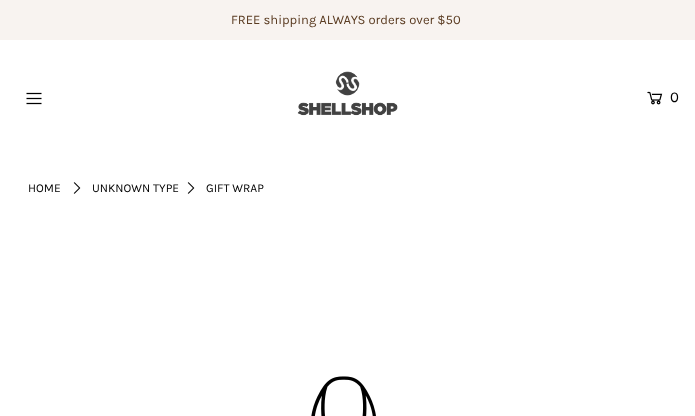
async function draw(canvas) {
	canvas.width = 695;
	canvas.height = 416;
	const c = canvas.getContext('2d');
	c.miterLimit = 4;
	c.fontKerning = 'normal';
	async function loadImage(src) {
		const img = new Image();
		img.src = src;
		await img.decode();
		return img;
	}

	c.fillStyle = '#fff';
	c.fillRect(0, 0, 695, 416);
	c.fillStyle = '#f8f3f0';
	c.fillRect(0, 0, 695, 40);
	c.font = '13px Karla';
	c.fillStyle = '#5a3b21';
	c.fillText('FREE shipping ALWAYS orders over $50', 231, 24);
	c.drawImage(await loadImage('img1.png'), 26, 92, 16, 13);
	c.drawImage(await loadImage('img2.png'), 297, 71, 101, 45);
	c.drawImage(await loadImage('img3.png'), 647, 91, 16, 14);
	c.font = '15px Karla';
	c.fillStyle = '#000';
	c.fillText('0', 670, 102);
	c.font = '12px Karla';
	c.fillText('HOME', 28, 192);
	c.drawImage(await loadImage('img4.png'), 73, 182, 8, 12);
	c.fillText('UNKNOWN TYPE', 92, 192);
	c.drawImage(await loadImage('img4.png'), 187, 182, 8, 12);
	c.fillText('GIFT WRAP', 206, 192);
	c.drawImage(await loadImage('img5.png'), 311, 376, 65, 40);
}

draw(document.querySelector('canvas'));
